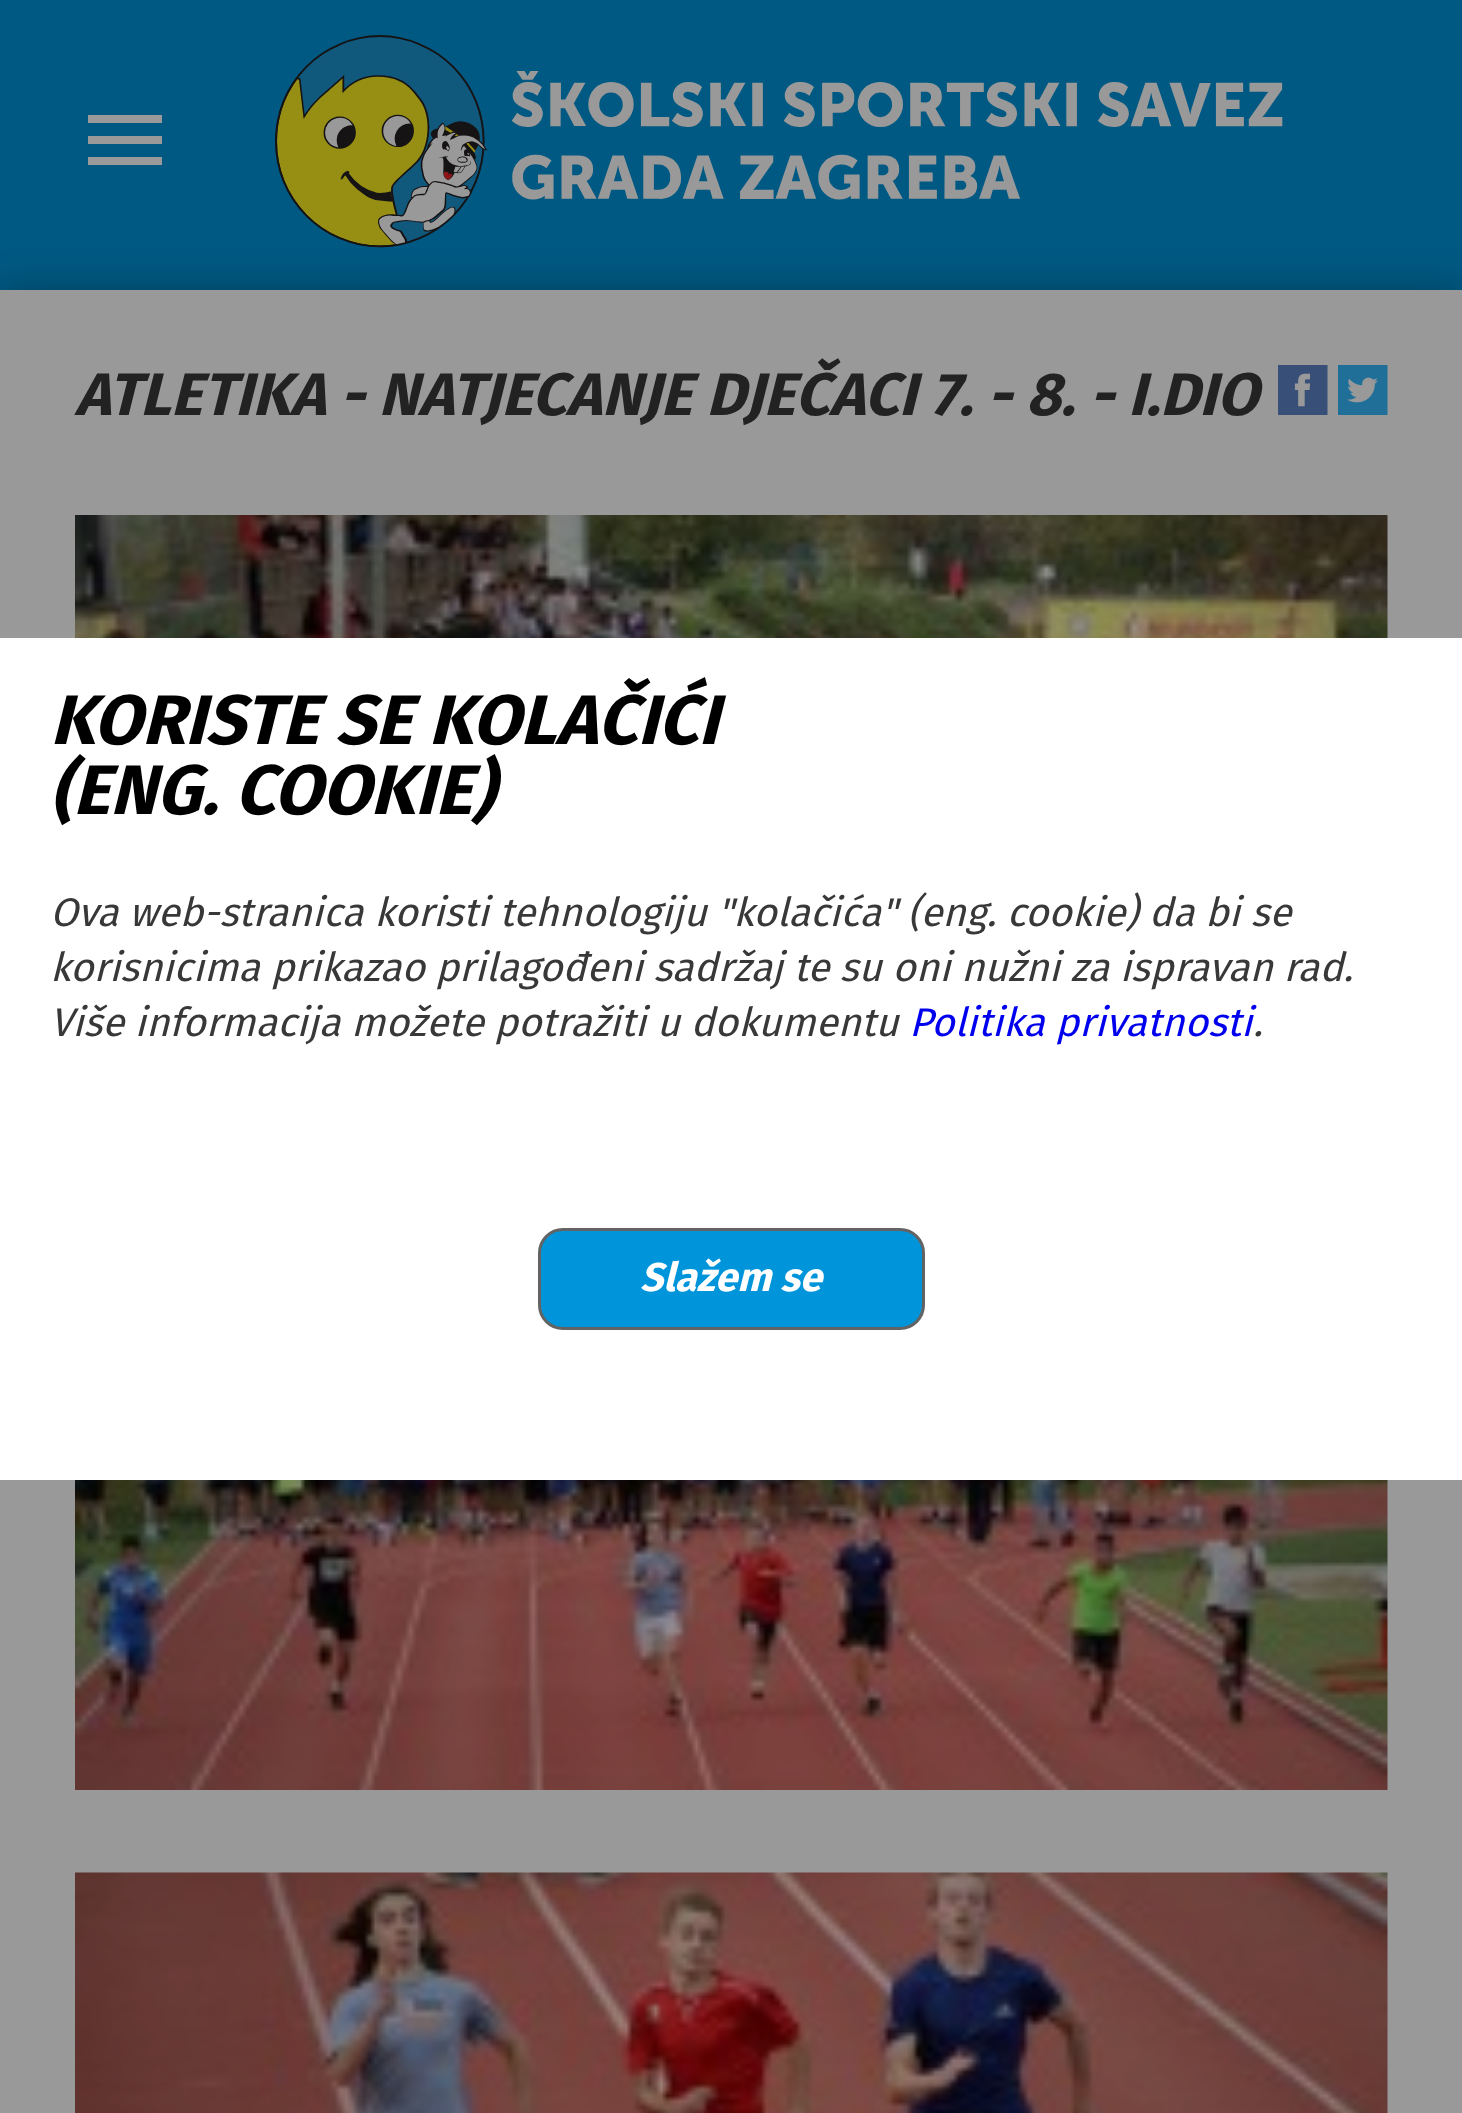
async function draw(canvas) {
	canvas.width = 1462;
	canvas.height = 2113;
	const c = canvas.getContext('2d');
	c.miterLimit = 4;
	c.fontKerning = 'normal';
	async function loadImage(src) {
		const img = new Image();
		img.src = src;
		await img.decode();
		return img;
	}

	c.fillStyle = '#005983';
	c.fillRect(0, 0, 1462, 2113);
	c.fillStyle = '#999';
	c.beginPath();
	c.moveTo(88, 165);
	c.lineTo(162, 165);
	c.lineTo(162, 157);
	c.lineTo(88, 157);
	c.closePath();
	c.moveTo(88, 144);
	c.lineTo(162, 144);
	c.lineTo(162, 136);
	c.lineTo(88, 136);
	c.closePath();
	c.moveTo(88, 115);
	c.lineTo(88, 123);
	c.lineTo(162, 123);
	c.lineTo(162, 115);
	c.closePath();
	c.fill();
	c.fillStyle = '#0000004a';
	c.filter = 'blur(19px)';
	c.beginPath();
	c.rect(0, 290, 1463, 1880);
	c.fill();
	c.filter = 'none';
	c.drawImage(await loadImage('img1.png'), 275, 35, 1008, 213);
	c.fillStyle = '#999';
	c.fillRect(0, 290, 1462, 1823);
	c.font = 'italic bold 60px Fira Sans';
	c.fillStyle = '#222';
	c.fillText('ATLETIKA - NATJECANJE DJEČACI 7. - 8. - I.DIO', 75, 415);
	c.drawImage(await loadImage('img2.png'), 1278, 365, 50, 50);
	c.drawImage(await loadImage('img3.png'), 1338, 365, 50, 50);
	c.drawImage(await loadImage('img4.png'), 75, 515, 1313, 123);
	c.drawImage(await loadImage('img5.png'), 75, 1480, 1313, 310);
	c.drawImage(await loadImage('img6.png'), 75, 1872, 1313, 241);
	c.fillStyle = '#fff';
	c.fillRect(0, 638, 1462, 842);
	c.font = 'italic bold 70px Fira Sans';
	c.fillStyle = '#000';
	c.fillText('KORISTE SE KOLAČIĆI', 50, 744);
	c.fillText('(ENG. COOKIE)', 50, 814);
	c.font = 'italic 40px Fira Sans';
	c.fillStyle = '#383838';
	for (const [text, x, y] of [
		['Ova web-stranica koristi tehnologiju "kolačića" (eng. cookie) da bi se', 50, 926],
		['korisnicima prikazao prilagođeni sadržaj te su oni nužni za ispravan rad.', 50, 981],
		['Više informacija možete potražiti u dokumentu', 50, 1036],
	]) {
		c.fillText(text, x, y);
	}
	c.fillStyle = '#00e';
	c.fillText('Politika privatnosti', 909, 1036);
	c.fillStyle = '#383838';
	c.fillText('.', 1253, 1036);
	c.fillStyle = '#0095da';
	c.beginPath();
	c.roundRect(539.5, 1229.5, 384, 99, 23.5);
	c.fill();
	c.strokeStyle = '#636363';
	c.lineWidth = 3;
	c.stroke();
	c.font = 'italic bold 40px Fira Sans';
	c.fillStyle = '#fff';
	c.fillText('Slažem se', 640, 1291);
}

draw(document.querySelector('canvas'));
